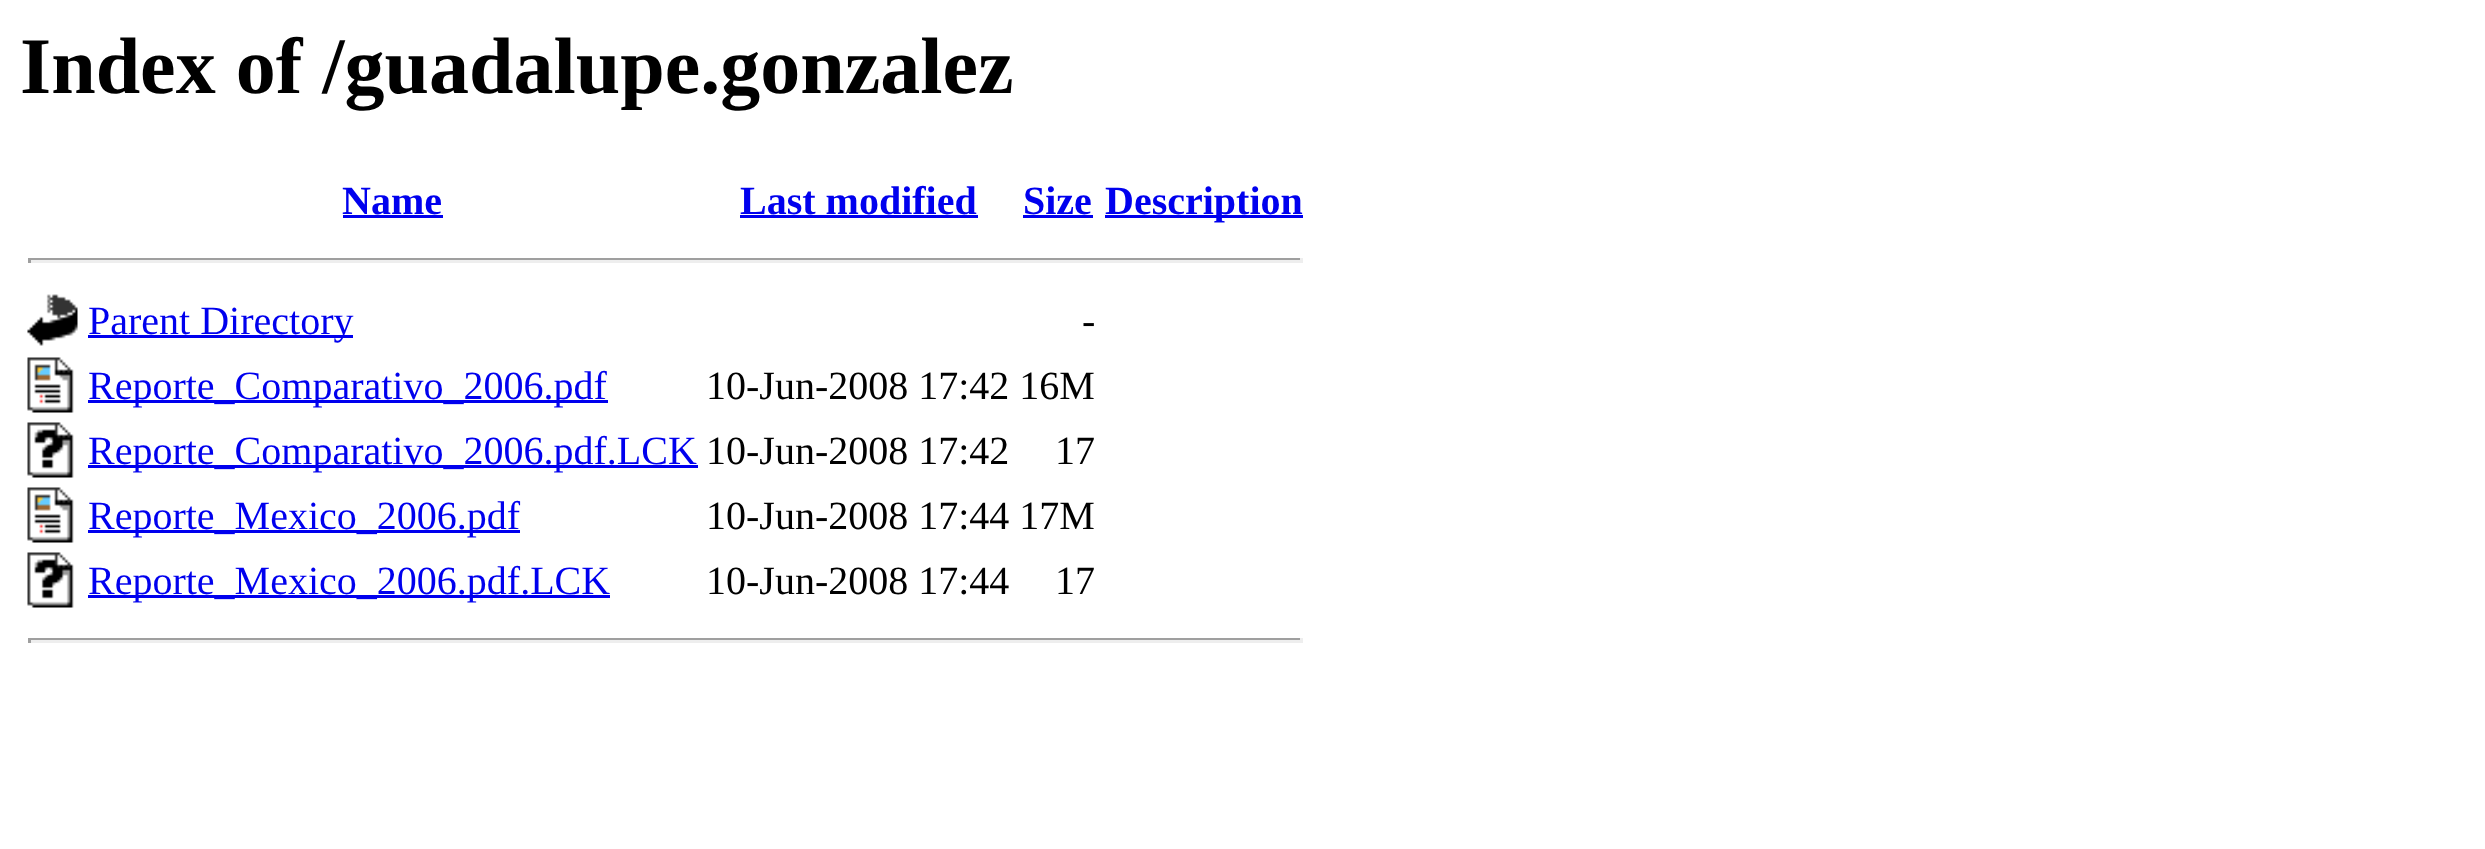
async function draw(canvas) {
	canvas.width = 2485;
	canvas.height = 849;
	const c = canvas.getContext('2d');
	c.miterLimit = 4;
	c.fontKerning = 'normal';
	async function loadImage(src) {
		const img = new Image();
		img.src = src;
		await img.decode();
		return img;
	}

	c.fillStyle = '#fff';
	c.fillRect(0, 0, 2485, 849);
	c.font = 'bold 80px Liberation Serif';
	c.fillStyle = '#000';
	c.fillText('Index of /guadalupe.gonzalez', 20, 93);
	c.font = 'bold 40px Liberation Serif';
	c.fillStyle = '#00e';
	c.fillText('Name', 342, 214);
	c.fillRect(343, 215, 100, 3);
	c.fillText('Last modified', 740, 214);
	c.fillRect(740, 215, 238, 3);
	c.fillText('Size', 1023, 214);
	c.fillRect(1023, 215, 70, 3);
	c.fillRect(1105, 215, 198, 3);
	c.fillText('Description', 1105, 214);
	for (const [x, y, w, h, color] of [
		[28, 258, 1275, 2, '#9f9f9f'],
		[1300, 258, 3, 5, '#eee'],
		[28, 260, 1275, 3, '#eee'],
		[28, 258, 3, 5, '#9f9f9f'],
	]) {
		c.fillStyle = color;
		c.fillRect(x, y, w, h);
	}
	c.drawImage(await loadImage('img1.png'), 27, 294, 51, 52);
	c.fillStyle = '#00e';
	c.fillRect(88, 335, 265, 3);
	c.font = '40px Liberation Serif';
	c.fillText('Parent Directory', 88, 334);
	c.fillStyle = '#000';
	c.fillText('-', 1082, 334);
	c.drawImage(await loadImage('img2.png'), 27, 357, 47, 56);
	c.fillStyle = '#00e';
	c.fillRect(88, 400, 520, 3);
	c.fillText('Reporte_Comparativo_2006.pdf', 88, 399);
	c.fillStyle = '#000';
	c.fillText('10-Jun-2008 17:42 16M', 706, 399);
	c.drawImage(await loadImage('img3.png'), 27, 422, 47, 56);
	c.fillStyle = '#00e';
	c.fillRect(88, 465, 610, 3);
	c.fillText('Reporte_Comparativo_2006.pdf.LCK', 88, 464);
	c.fillStyle = '#000';
	c.fillText('10-Jun-2008 17:42', 706, 464);
	c.fillText('17', 1055, 464);
	c.drawImage(await loadImage('img2.png'), 27, 487, 47, 56);
	c.fillStyle = '#00e';
	c.fillRect(88, 530, 432, 3);
	c.fillText('Reporte_Mexico_2006.pdf', 88, 529);
	c.fillStyle = '#000';
	c.fillText('10-Jun-2008 17:44 17M', 706, 529);
	c.drawImage(await loadImage('img4.png'), 27, 552, 47, 56);
	c.fillStyle = '#00e';
	c.fillRect(88, 595, 522, 3);
	c.fillText('Reporte_Mexico_2006.pdf.LCK', 88, 594);
	c.fillStyle = '#000';
	c.fillText('10-Jun-2008 17:44', 706, 594);
	c.fillText('17', 1055, 594);
	for (const [x, y, w, h, color] of [
		[28, 638, 1275, 2, '#9f9f9f'],
		[1300, 638, 3, 5, '#eee'],
		[28, 640, 1275, 3, '#eee'],
		[28, 638, 3, 5, '#9f9f9f'],
	]) {
		c.fillStyle = color;
		c.fillRect(x, y, w, h);
	}
}

draw(document.querySelector('canvas'));
